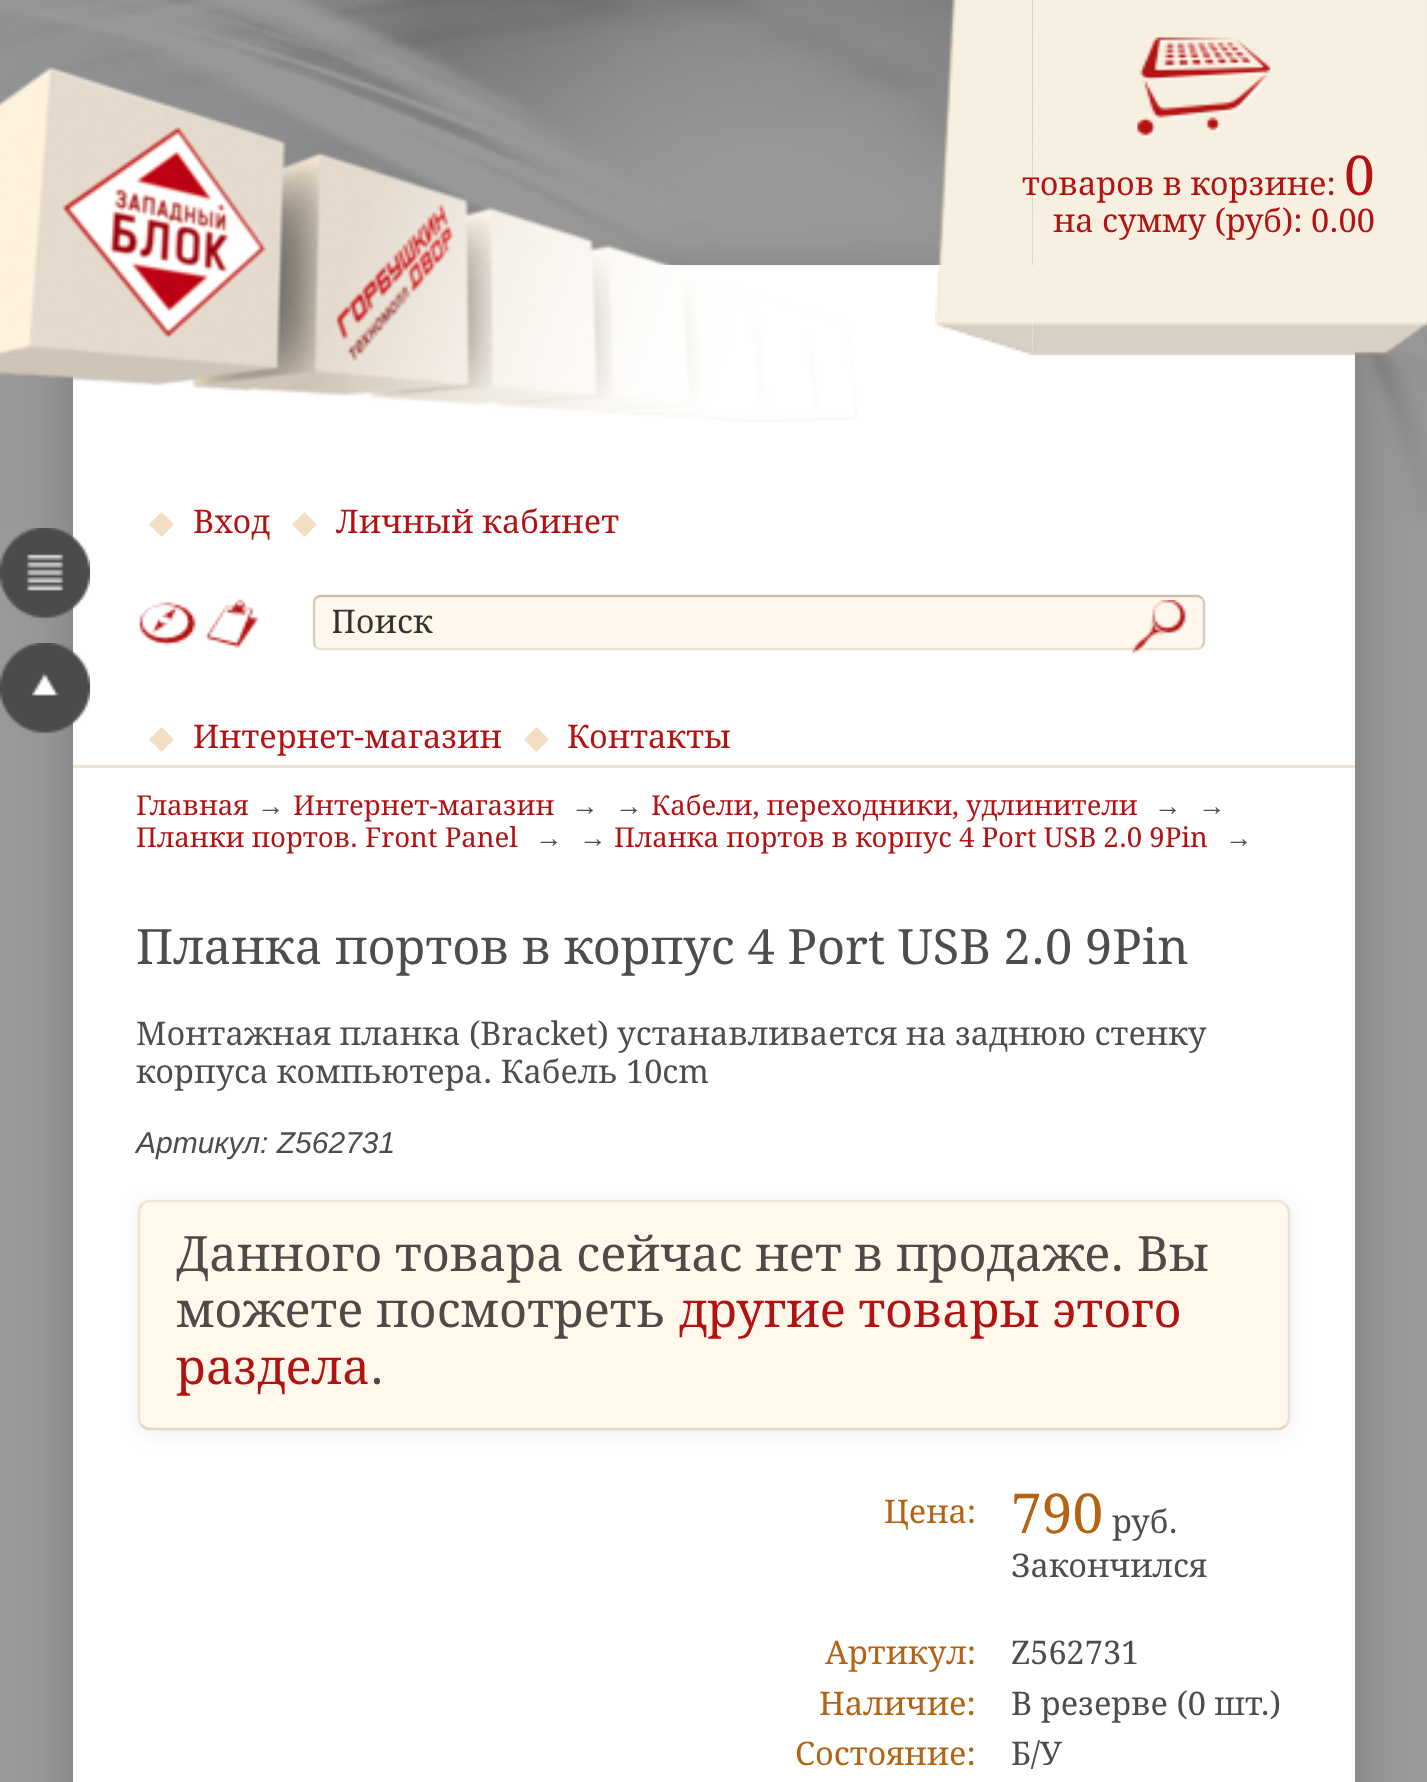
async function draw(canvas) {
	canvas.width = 1427;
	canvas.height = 1782;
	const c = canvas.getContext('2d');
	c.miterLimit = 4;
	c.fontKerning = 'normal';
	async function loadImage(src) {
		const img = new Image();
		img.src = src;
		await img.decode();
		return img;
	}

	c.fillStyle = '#999';
	c.fillRect(0, 0, 1427, 1782);
	c.drawImage(await loadImage('img1.png'), 0, 0, 1427, 521);
	c.fillStyle = '#00000033';
	c.filter = 'blur(25px)';
	c.beginPath();
	c.roundRect(73, 273, 1282, 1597, 13);
	c.fill();
	c.filter = 'none';
	c.fillStyle = '#fff';
	c.fillRect(73, 265, 1282, 1517);
	c.drawImage(await loadImage('img2.png'), 0, 66, 857, 357);
	c.drawImage(await loadImage('img3.png'), 1032, 0, 353, 355);
	c.drawImage(await loadImage('img4.png'), 935, 0, 98, 355);
	c.drawImage(await loadImage('img5.png'), 1137, 37, 136, 101);
	c.drawImage(await loadImage('img6.png'), 1385, 0, 42, 355);
	c.font = '32.5px Droid Serif';
	c.fillStyle = '#b31212';
	c.fillText('товаров в корзине:', 1022, 195);
	c.font = '55px Droid Serif';
	c.fillText('0', 1344, 195);
	c.font = '32.5px Droid Serif';
	c.fillText('на сумму (руб): 0.00', 1053, 232);
	c.drawImage(await loadImage('img7.png'), 137, 601, 59, 45);
	c.drawImage(await loadImage('img8.png'), 205, 599, 54, 50);
	c.fillStyle = '#fff7eb';
	c.beginPath();
	c.roundRect(313, 595, 892, 55, 8);
	c.fill();
	c.beginPath();
	c.moveTo(315.5, 598);
	c.bezierCurveTo(317, 597, 318.5, 596, 320, 596);
	c.lineTo(1197.5, 596);
	c.bezierCurveTo(1199, 596, 1200.5, 597, 1202, 598);
	c.strokeStyle = '#36230040';
	c.lineWidth = 2.5;
	c.stroke();
	c.beginPath();
	c.moveTo(1202, 598);
	c.bezierCurveTo(1203, 599.5, 1204, 601, 1204, 602.5);
	c.lineTo(1204, 642.5);
	c.bezierCurveTo(1204, 644, 1203, 645.5, 1202, 647);
	c.strokeStyle = '#36230033';
	c.stroke();
	c.beginPath();
	c.moveTo(1202, 647);
	c.bezierCurveTo(1200.5, 648, 1199, 649, 1197.5, 649);
	c.lineTo(320, 649);
	c.bezierCurveTo(318.5, 649, 317, 648, 315.5, 647);
	c.strokeStyle = '#3623001a';
	c.stroke();
	c.beginPath();
	c.moveTo(315.5, 647);
	c.bezierCurveTo(314.5, 645.5, 314, 644, 314, 642.5);
	c.lineTo(314, 602.5);
	c.bezierCurveTo(314, 601, 314.5, 599.5, 315.5, 598);
	c.strokeStyle = '#36230033';
	c.stroke();
	c.save();
	c.beginPath();
	c.rect(333, 603, 807, 37);
	c.clip();
	c.fillStyle = '#333';
	c.fillText('Поиск', 331, 633);
	c.restore();
	c.drawImage(await loadImage('img9.png'), 1132, 600, 56, 55);
	c.fillStyle = '#ebe3d5';
	c.fillRect(73, 765, 1282, 3);
	c.font = '32.5px DejaVu Sans';
	c.fillStyle = '#f2dec2';
	c.fillText('◆', 149, 533);
	c.font = '32.5px Droid Serif';
	c.fillStyle = '#b31212';
	c.fillText('Вход', 193, 533);
	c.font = '32.5px DejaVu Sans';
	c.fillStyle = '#f2dec2';
	c.fillText('◆', 292, 533);
	c.font = '32.5px Droid Serif';
	c.fillStyle = '#b31212';
	c.fillText('Личный кабинет', 336, 533);
	c.font = '32.5px DejaVu Sans';
	c.fillStyle = '#f2dec2';
	c.fillText('◆', 149, 748);
	c.font = '32.5px Droid Serif';
	c.fillStyle = '#b31212';
	c.fillText('Интернет-магазин', 193, 748);
	c.font = '32.5px DejaVu Sans';
	c.fillStyle = '#f2dec2';
	c.fillText('◆', 524, 748);
	c.font = '32.5px Droid Serif';
	c.fillStyle = '#b31212';
	c.fillText('Контакты', 567, 748);
	c.drawImage(await loadImage('img10.png'), 0, 528, 90, 91);
	c.drawImage(await loadImage('img11.png'), 0, 643, 90, 91);
	c.font = '27.5px Droid Serif';
	c.fillText('Главная', 136, 815);
	c.font = '27.5px Liberation Serif';
	c.fillStyle = '#4d4d4d';
	c.fillText('→', 257, 815);
	c.font = '27.5px Droid Serif';
	c.fillStyle = '#b31212';
	c.fillText('Интернет-магазин', 293, 815);
	c.font = '27.5px Liberation Serif';
	c.fillStyle = '#4d4d4d';
	c.fillText('→', 571, 815);
	c.fillText('→', 615, 815);
	c.font = '27.5px Droid Serif';
	c.fillStyle = '#b31212';
	c.fillText('Кабели, переходники, удлинители', 651, 815);
	c.font = '27.5px Liberation Serif';
	c.fillStyle = '#4d4d4d';
	c.fillText('→', 1154, 815);
	c.fillText('→', 1198, 815);
	c.font = '27.5px Droid Serif';
	c.fillStyle = '#b31212';
	c.fillText('Планки портов. Front Panel', 136, 847);
	c.font = '27.5px Liberation Serif';
	c.fillStyle = '#4d4d4d';
	c.fillText('→', 535, 847);
	c.fillText('→', 579, 847);
	c.font = '27.5px Droid Serif';
	c.fillStyle = '#b31212';
	c.fillText('Планка портов в корпус 4 Port USB 2.0 9Pin', 614, 847);
	c.font = '27.5px Liberation Serif';
	c.fillStyle = '#4d4d4d';
	c.fillText('→', 1225, 847);
	c.font = '48.75px Droid Serif';
	c.fillText('Планка портов в корпус 4 Port USB 2.0 9Pin', 136, 964);
	c.font = '32.5px Droid Serif';
	c.fillText('Монтажная планка (Bracket) устанавливается на заднюю стенку', 136, 1045);
	c.fillText('корпуса компьютера. Кабель 10cm', 136, 1083);
	c.font = 'italic 30px Liberation Sans';
	c.fillText('Артикул: Z562731', 136, 1153);
	c.fillStyle = '#00000014';
	c.filter = 'blur(10px)';
	c.beginPath();
	c.roundRect(138, 1203, 1152, 230, 13);
	c.fill();
	c.filter = 'none';
	c.fillStyle = '#fff8eb';
	c.beginPath();
	c.roundRect(138, 1200, 1152, 230, 13);
	c.fill();
	c.beginPath();
	c.moveTo(142, 1204.5);
	c.bezierCurveTo(144, 1202.5, 147, 1201, 150, 1201);
	c.lineTo(1277.5, 1201);
	c.bezierCurveTo(1280.5, 1201, 1283.5, 1202.5, 1285.5, 1204.5);
	c.strokeStyle = '#36230012';
	c.stroke();
	c.beginPath();
	c.moveTo(1285.5, 1204.5);
	c.bezierCurveTo(1287.5, 1206.5, 1289, 1209.5, 1289, 1212.5);
	c.lineTo(1289, 1417.5);
	c.bezierCurveTo(1289, 1420.5, 1287.5, 1423.5, 1285.5, 1425.5);
	c.strokeStyle = '#3623001a';
	c.stroke();
	c.beginPath();
	c.moveTo(1285.5, 1425.5);
	c.bezierCurveTo(1283.5, 1427.5, 1280.5, 1429, 1277.5, 1429);
	c.lineTo(150, 1429);
	c.bezierCurveTo(147, 1429, 144, 1427.5, 142, 1425.5);
	c.strokeStyle = '#36230026';
	c.stroke();
	c.beginPath();
	c.moveTo(142, 1425.5);
	c.bezierCurveTo(140, 1423.5, 139, 1420.5, 139, 1417.5);
	c.lineTo(139, 1212.5);
	c.bezierCurveTo(139, 1209.5, 140, 1206.5, 142, 1204.5);
	c.strokeStyle = '#3623001a';
	c.stroke();
	c.font = '48.75px Droid Serif';
	c.fillStyle = '#4d4a47';
	c.fillText('Данного товара сейчас нет в продаже. Вы', 176, 1271);
	c.fillText('можете посмотреть', 176, 1327);
	c.fillStyle = '#b31212';
	c.fillText('другие товары этого', 679, 1327);
	c.fillText('раздела', 176, 1384);
	c.fillStyle = '#4d4a47';
	c.fillText('.', 370, 1384);
	c.font = '32.5px Droid Serif';
	c.fillStyle = '#b36312';
	c.fillText('Цена:', 884, 1523);
	c.font = '55px Droid Serif';
	c.fillText('790', 1011, 1533);
	c.font = '32.5px Droid Serif';
	c.fillStyle = '#4d4d4d';
	c.fillText('руб.', 1112, 1533);
	c.fillText('Закончился', 1011, 1577);
	c.fillStyle = '#b36312';
	c.fillText('Артикул:', 825, 1664);
	c.fillStyle = '#4d4d4d';
	c.fillText('Z562731', 1011, 1664);
	c.fillStyle = '#b36312';
	c.fillText('Наличие:', 819, 1715);
	c.fillStyle = '#4d4d4d';
	c.fillText('В резерве (0 шт.)', 1011, 1715);
	c.fillStyle = '#b36312';
	c.fillText('Состояние:', 795, 1765);
	c.fillStyle = '#4d4d4d';
	c.fillText('Б/У', 1011, 1765);
}

draw(document.querySelector('canvas'));
